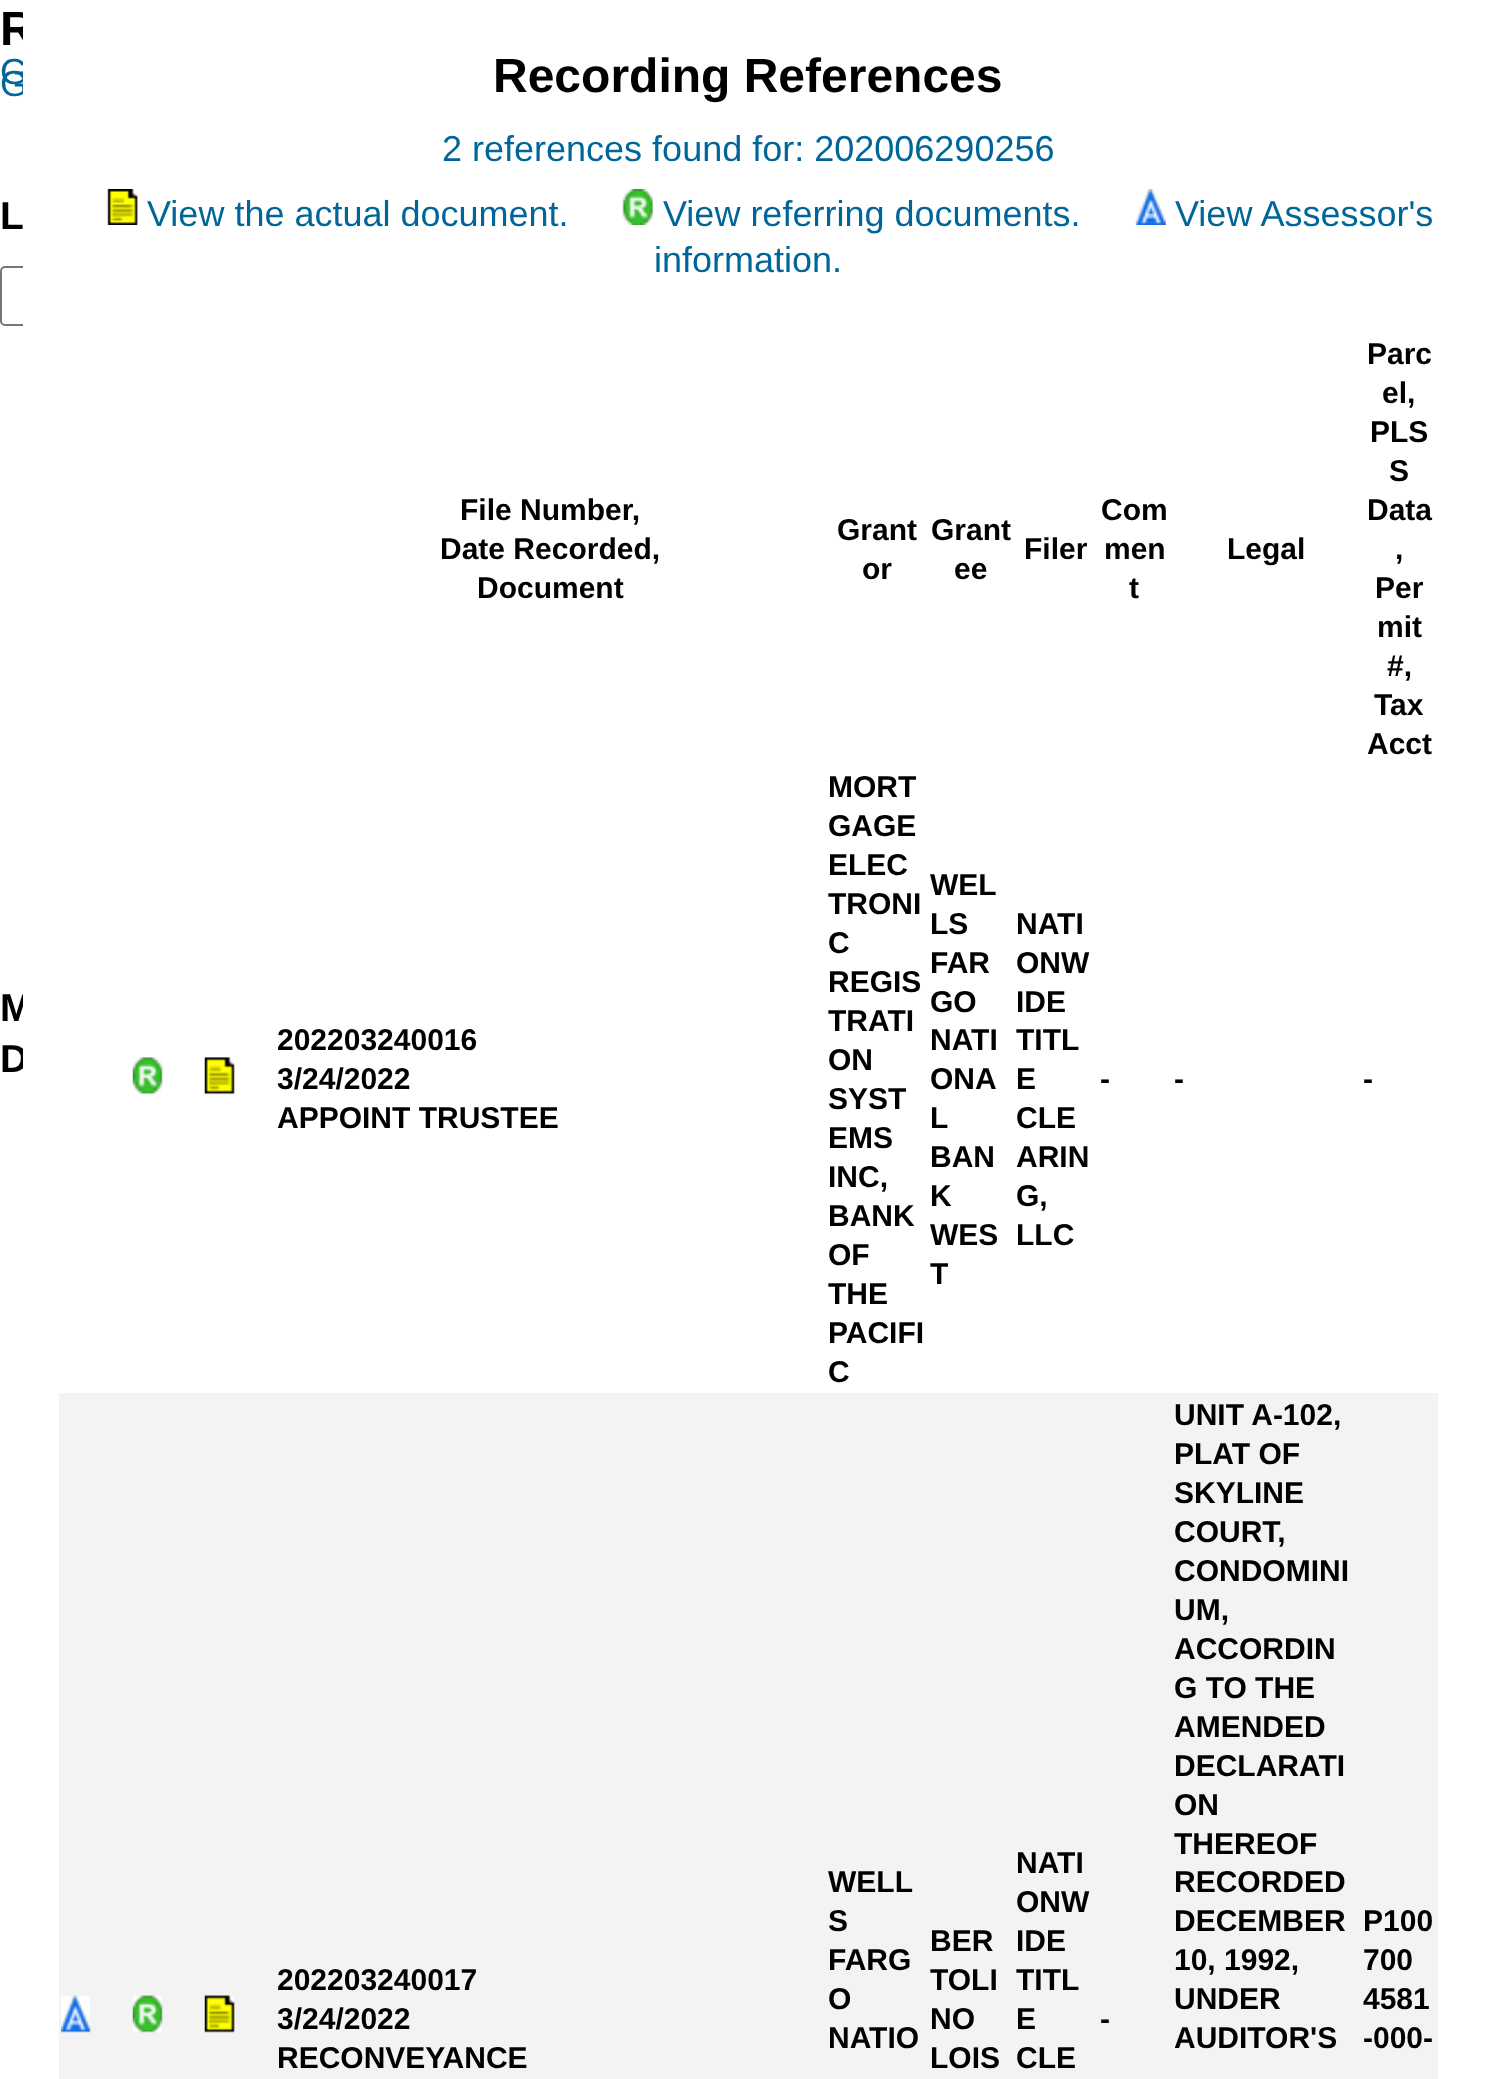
async function draw(canvas) {
	canvas.width = 1496;
	canvas.height = 2079;
	const c = canvas.getContext('2d');
	c.miterLimit = 4;
	c.fontKerning = 'normal';
	async function loadImage(src) {
		const img = new Image();
		img.src = src;
		await img.decode();
		return img;
	}

	c.fillStyle = '#fff';
	c.fillRect(0, 0, 1496, 2079);
	c.font = 'bold 48px Liberation Sans';
	c.fillStyle = '#000';
	c.fillText('R', 0, 45);
	c.font = '36px Liberation Sans';
	c.fillStyle = '#069';
	c.fillText('G', 0, 96);
	c.fillText('G', 0, 84);
	c.font = 'bold 39px Liberation Sans';
	c.fillStyle = '#000';
	c.fillText('L', 0, 229);
	c.beginPath();
	c.roundRect(1, 267, 482, 58, 4);
	c.strokeStyle = '#767676';
	c.lineWidth = 2;
	c.stroke();
	c.fillText('M', 0, 1021);
	c.fillText('D', 0, 1072);
	c.fillStyle = '#fff';
	c.fillRect(23, 12, 461, 1057);
	c.font = 'bold 48px Liberation Sans';
	c.fillStyle = '#000';
	c.fillText('Recording References', 493, 92);
	c.font = '36px Liberation Sans';
	c.fillStyle = '#069';
	c.fillText('2 references found for: 202006290256', 442, 161);
	c.drawImage(await loadImage('img1.png'), 107, 189, 31, 36);
	c.fillText('View the actual document.', 147, 226);
	c.drawImage(await loadImage('img2.png'), 622, 189, 31, 36);
	c.fillText('View referring documents.', 663, 226);
	c.drawImage(await loadImage('img3.png'), 1135, 189, 31, 36);
	c.fillText('View Assessor\'s', 1175, 226);
	c.fillText('information.', 654, 272);
	c.font = 'bold 30px Liberation Sans';
	c.fillStyle = '#000';
	for (const [text, x, y] of [
		['File Number,', 460, 520],
		['Date Recorded,', 440, 559],
		['Document', 477, 598],
		['Grant', 837, 540],
		['or', 862, 579],
		['Grant', 931, 540],
		['ee', 954, 579],
		['Filer', 1024, 559],
		['Com', 1101, 520],
		['men', 1104, 559],
		['t', 1129, 598],
		['Legal', 1227, 559],
		['Parc', 1367, 364],
		['el,', 1382, 403],
		['PLS', 1370, 442],
		['S', 1389, 481],
		['Data', 1367, 520],
		[',', 1395, 559],
		['Per', 1375, 598],
		['mit', 1377, 637],
		['#,', 1387, 676],
		['Tax', 1374, 715],
		['Acct', 1367, 754],
	]) {
		c.fillText(text, x, y);
	}
	c.drawImage(await loadImage('img4.png'), 132, 1057, 31, 38);
	c.drawImage(await loadImage('img5.png'), 204, 1057, 31, 38);
	for (const [text, x, y] of [
		['202203240016', 277, 1050],
		['3/24/2022', 277, 1089],
		['APPOINT TRUSTEE', 277, 1128],
		['MORT', 828, 797],
		['GAGE', 828, 836],
		['ELEC', 828, 875],
		['TRONI', 828, 914],
		['C', 828, 953],
		['REGIS', 828, 992],
		['TRATI', 828, 1031],
		['ON', 828, 1070],
		['SYST', 828, 1109],
		['EMS', 828, 1148],
		['INC,', 828, 1187],
		['BANK', 828, 1226],
		['OF', 828, 1265],
		['THE', 828, 1304],
		['PACIFI', 828, 1343],
		['C', 828, 1382],
		['WEL', 930, 895],
		['LS', 930, 934],
		['FAR', 930, 973],
		['GO', 930, 1012],
		['NATI', 930, 1050],
		['ONA', 930, 1089],
		['L', 930, 1128],
		['BAN', 930, 1167],
		['K', 930, 1206],
		['WES', 930, 1245],
		['T', 930, 1284],
		['NATI', 1016, 934],
		['ONW', 1016, 973],
		['IDE', 1016, 1012],
		['TITL', 1016, 1050],
		['E', 1016, 1089],
		['CLE', 1016, 1128],
		['ARIN', 1016, 1167],
		['G,', 1016, 1206],
		['LLC', 1016, 1245],
		['-', 1100, 1089],
		['-', 1174, 1089],
		['-', 1363, 1089],
	]) {
		c.fillText(text, x, y);
	}
	c.fillStyle = '#f3f3f3';
	c.fillRect(59, 1393, 1379, 686);
	c.drawImage(await loadImage('img6.png'), 61, 1995, 30, 38);
	c.drawImage(await loadImage('img7.png'), 132, 1995, 31, 38);
	c.drawImage(await loadImage('img8.png'), 204, 1995, 31, 38);
	c.fillStyle = '#000';
	for (const [text, x, y] of [
		['202203240017', 277, 1990],
		['3/24/2022', 277, 2029],
		['RECONVEYANCE', 277, 2068],
		['WELL', 828, 1892],
		['S', 828, 1931],
		['FARG', 828, 1970],
		['O', 828, 2009],
		['NATIO', 828, 2048],
		['BER', 930, 1951],
		['TOLI', 930, 1990],
		['NO', 930, 2029],
		['LOIS', 930, 2068],
		['NATI', 1016, 1873],
		['ONW', 1016, 1912],
		['IDE', 1016, 1951],
		['TITL', 1016, 1990],
		['E', 1016, 2029],
		['CLE', 1016, 2068],
		['-', 1100, 2029],
		['UNIT A-102,', 1174, 1425],
		['PLAT OF', 1174, 1464],
		['SKYLINE', 1174, 1503],
		['COURT,', 1174, 1542],
		['CONDOMINI', 1174, 1581],
		['UM,', 1174, 1620],
		['ACCORDIN', 1174, 1659],
		['G TO THE', 1174, 1698],
		['AMENDED', 1174, 1737],
		['DECLARATI', 1174, 1776],
		['ON', 1174, 1815],
		['THEREOF', 1174, 1854],
		['RECORDED', 1174, 1892],
		['DECEMBER', 1174, 1931],
		['10, 1992,', 1174, 1970],
		['UNDER', 1174, 2009],
		['AUDITOR\'S', 1174, 2048],
		['P100', 1363, 1931],
		['700', 1363, 1970],
		['4581', 1363, 2009],
		['-000-', 1363, 2048],
	]) {
		c.fillText(text, x, y);
	}
}

draw(document.querySelector('canvas'));
